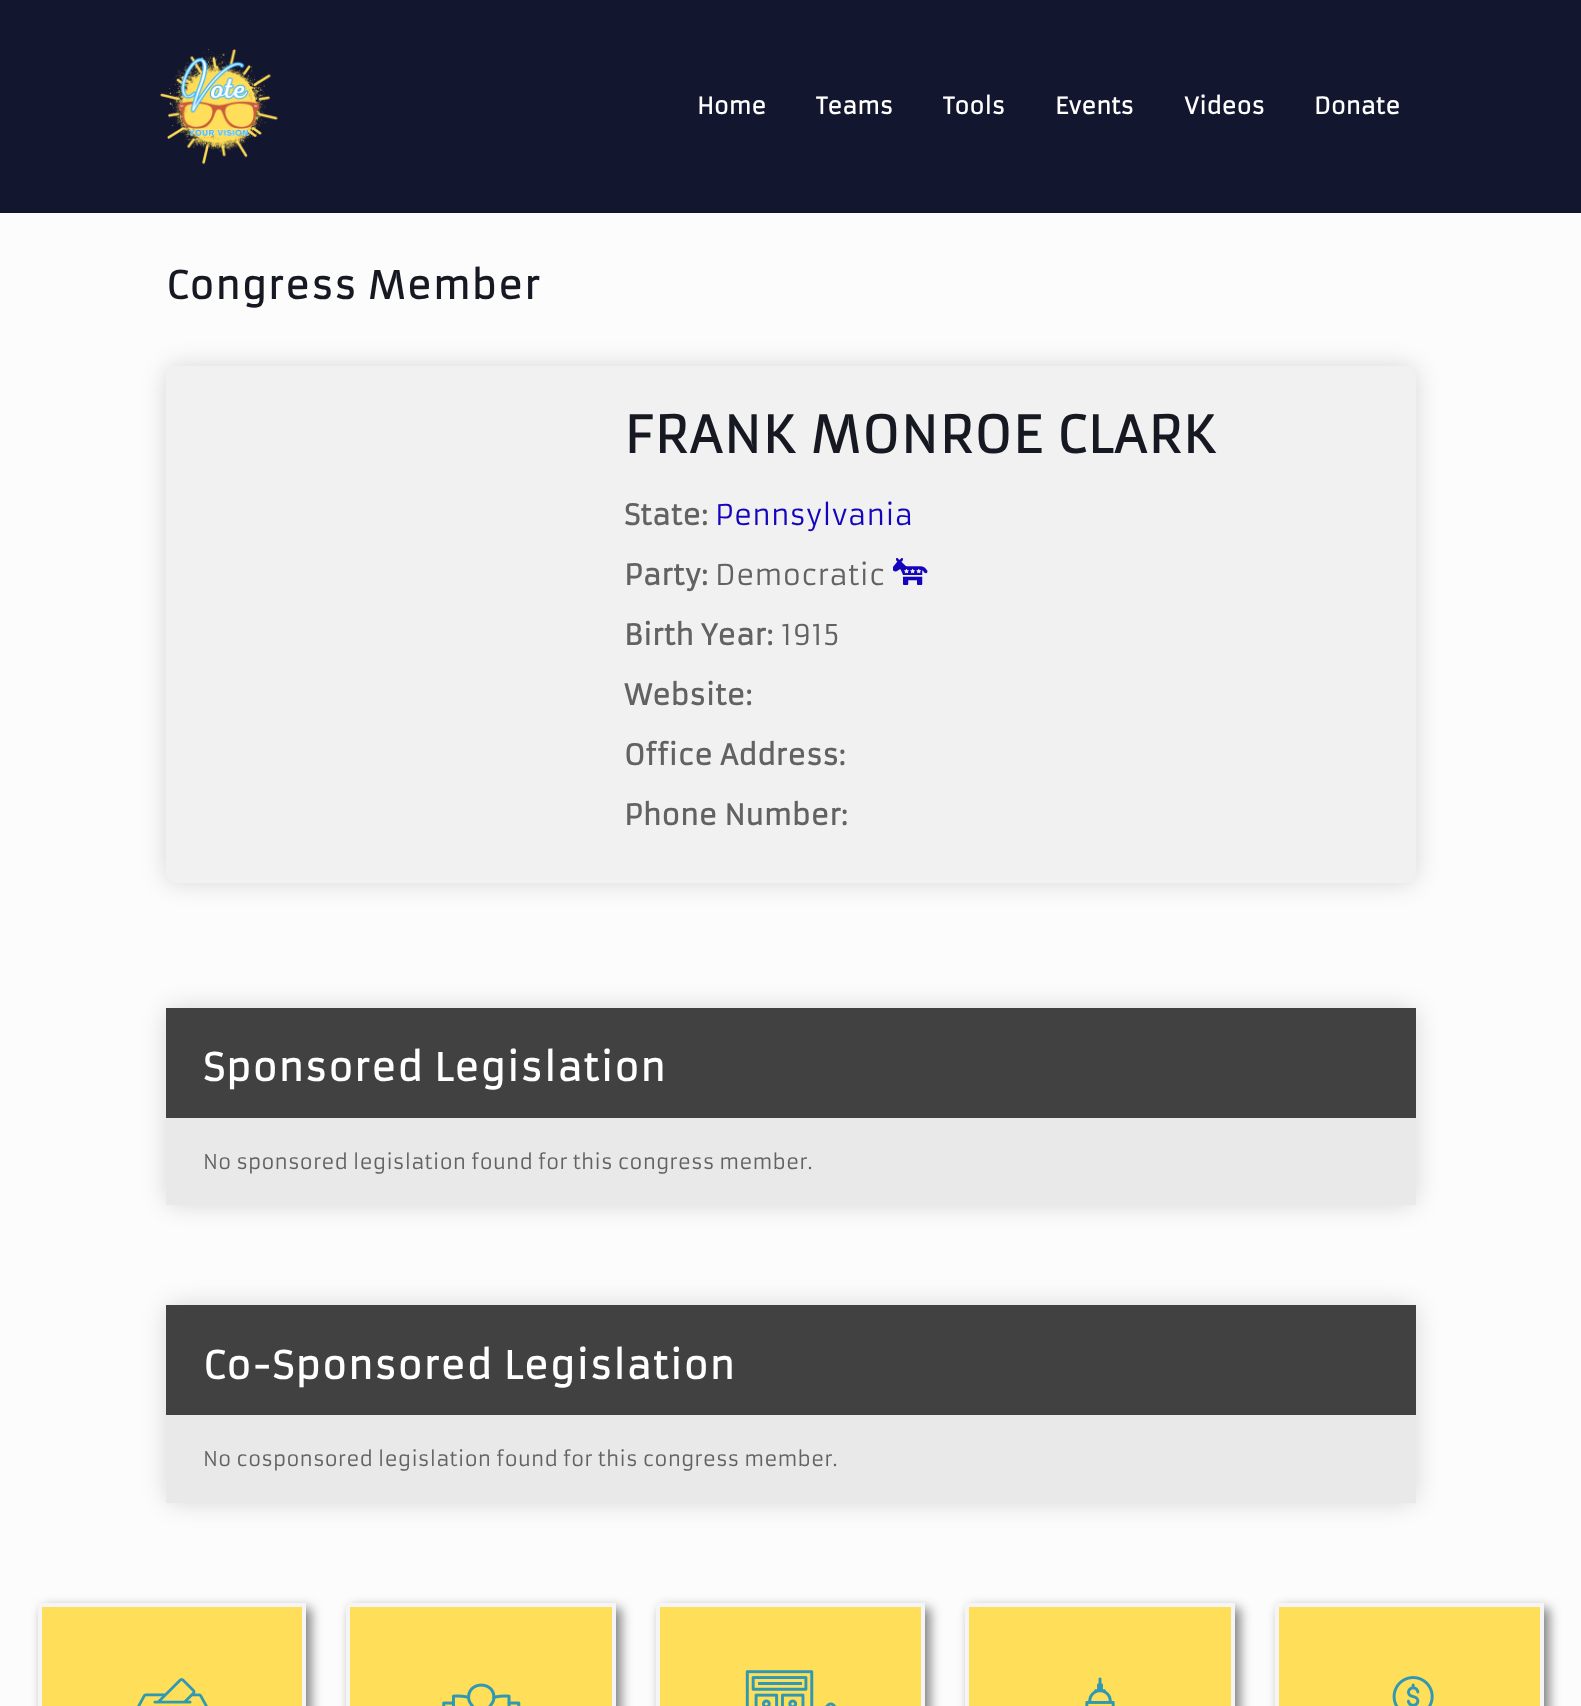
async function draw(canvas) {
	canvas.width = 1581;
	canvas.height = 1706;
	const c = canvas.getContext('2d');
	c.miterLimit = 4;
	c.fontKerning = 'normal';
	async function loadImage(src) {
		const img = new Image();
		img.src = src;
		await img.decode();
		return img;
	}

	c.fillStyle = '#fcfcfc';
	c.fillRect(0, 0, 1581, 1706);
	c.fillStyle = '#13162f';
	c.fillRect(0, 0, 1581, 213);
	c.drawImage(await loadImage('img1.png'), 160, 49, 118, 116);
	c.font = 'bold 22.5px Armata';
	c.fillStyle = '#fff';
	for (const [text, x, y] of [
		['Home', 697, 114],
		['Teams', 816, 114],
		['Tools', 943, 114],
		['Events', 1055, 114],
		['Videos', 1184, 114],
		['Donate', 1314, 114],
	]) {
		c.fillText(text, x, y);
	}
	c.letterSpacing = '1.25px';
	c.font = 'bold 37.5px Armata';
	c.fillStyle = '#161922';
	c.fillText('Congress Member', 166, 299);
	c.fillStyle = '#00000026';
	c.filter = 'blur(12.5px)';
	c.beginPath();
	c.roundRect(166, 366, 1250, 517, 10);
	c.fill();
	c.filter = 'none';
	c.fillStyle = '#f1f1f1';
	c.beginPath();
	c.roundRect(166, 366, 1250, 517, 10);
	c.fill();
	c.font = 'bold 50px Armata';
	c.fillStyle = '#161922';
	c.fillText('FRANK MONROE CLARK', 624, 453);
	c.letterSpacing = '0px';
	c.font = 'bold 28px Armata';
	c.fillStyle = '#626262';
	c.fillText('State:', 624, 525);
	c.font = '28px Armata';
	c.fillStyle = '#1405bd';
	c.fillText('Pennsylvania', 715, 525);
	c.font = 'bold 28px Armata';
	c.fillStyle = '#626262';
	c.fillText('Party:', 624, 585);
	c.font = '28px Armata';
	c.fillText('Democratic', 715, 585);
	c.drawImage(await loadImage('img2.png'), 893, 558, 35, 27);
	c.font = 'bold 28px Armata';
	c.fillText('Birth Year:', 624, 645);
	c.font = '28px Armata';
	c.fillText('1915', 781, 645);
	c.font = 'bold 28px Armata';
	for (const [text, x, y] of [
		['Website:', 624, 705],
		['Office Address:', 624, 765],
		['Phone Number:', 624, 825],
	]) {
		c.fillText(text, x, y);
	}
	c.fillStyle = '#00000026';
	c.filter = 'blur(12.5px)';
	c.beginPath();
	c.roundRect(166, 1008, 1250, 197, 10);
	c.fill();
	c.filter = 'none';
	c.fillStyle = '#414141';
	c.fillRect(166, 1008, 1250, 110);
	c.letterSpacing = '1.25px';
	c.font = 'bold 37.5px Armata';
	c.fillStyle = '#fff';
	c.fillText('Sponsored Legislation', 203, 1081);
	c.fillStyle = '#e9e9e9';
	c.fillRect(166, 1118, 1250, 87);
	c.letterSpacing = '0px';
	c.font = '20px Armata';
	c.fillStyle = '#626262';
	c.fillText('No sponsored legislation found for this congress member.', 203, 1169);
	c.fillStyle = '#00000026';
	c.filter = 'blur(12.5px)';
	c.beginPath();
	c.roundRect(166, 1305, 1250, 198, 10);
	c.fill();
	c.filter = 'none';
	c.fillStyle = '#414141';
	c.fillRect(166, 1305, 1250, 110);
	c.letterSpacing = '1.25px';
	c.font = 'bold 37.5px Armata';
	c.fillStyle = '#fff';
	c.fillText('Co-Sponsored Legislation', 203, 1379);
	c.fillStyle = '#e9e9e9';
	c.fillRect(166, 1415, 1250, 88);
	c.letterSpacing = '0px';
	c.font = '20px Armata';
	c.fillStyle = '#626262';
	c.fillText('No cosponsored legislation found for this congress member.', 203, 1466);
	c.fillStyle = '#00000080';
	c.filter = 'blur(6px)';
	c.beginPath();
	c.rect(43, 1608, 268, 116);
	c.fill();
	c.filter = 'none';
	c.fillStyle = '#ffde59';
	c.beginPath();
	c.rect(40, 1605, 264, 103);
	c.fill();
	c.strokeStyle = '#f5f5f5';
	c.lineWidth = 4;
	c.stroke();
	c.drawImage(await loadImage('img3.png'), 137, 1678, 71, 28);
	c.fillStyle = '#00000080';
	c.filter = 'blur(6px)';
	c.beginPath();
	c.rect(351, 1608, 270, 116);
	c.fill();
	c.filter = 'none';
	c.fillStyle = '#ffde59';
	c.beginPath();
	c.rect(348, 1605, 266, 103);
	c.fill();
	c.stroke();
	c.drawImage(await loadImage('img4.png'), 442, 1683, 79, 23);
	c.fillStyle = '#00000080';
	c.filter = 'blur(6px)';
	c.beginPath();
	c.rect(661, 1608, 269, 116);
	c.fill();
	c.filter = 'none';
	c.fillStyle = '#ffde59';
	c.beginPath();
	c.rect(658, 1605, 265, 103);
	c.fill();
	c.stroke();
	c.drawImage(await loadImage('img5.png'), 745, 1670, 91, 36);
	c.fillStyle = '#00000080';
	c.filter = 'blur(6px)';
	c.beginPath();
	c.rect(970, 1608, 270, 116);
	c.fill();
	c.filter = 'none';
	c.fillStyle = '#ffde59';
	c.beginPath();
	c.rect(967, 1605, 266, 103);
	c.fill();
	c.stroke();
	c.drawImage(await loadImage('img6.png'), 1085, 1677, 30, 29);
	c.fillStyle = '#00000080';
	c.filter = 'blur(6px)';
	c.beginPath();
	c.rect(1280, 1608, 269, 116);
	c.fill();
	c.filter = 'none';
	c.fillStyle = '#ffde59';
	c.beginPath();
	c.rect(1277, 1605, 265, 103);
	c.fill();
	c.stroke();
	c.drawImage(await loadImage('img7.png'), 1392, 1676, 42, 30);
}

draw(document.querySelector('canvas'));
